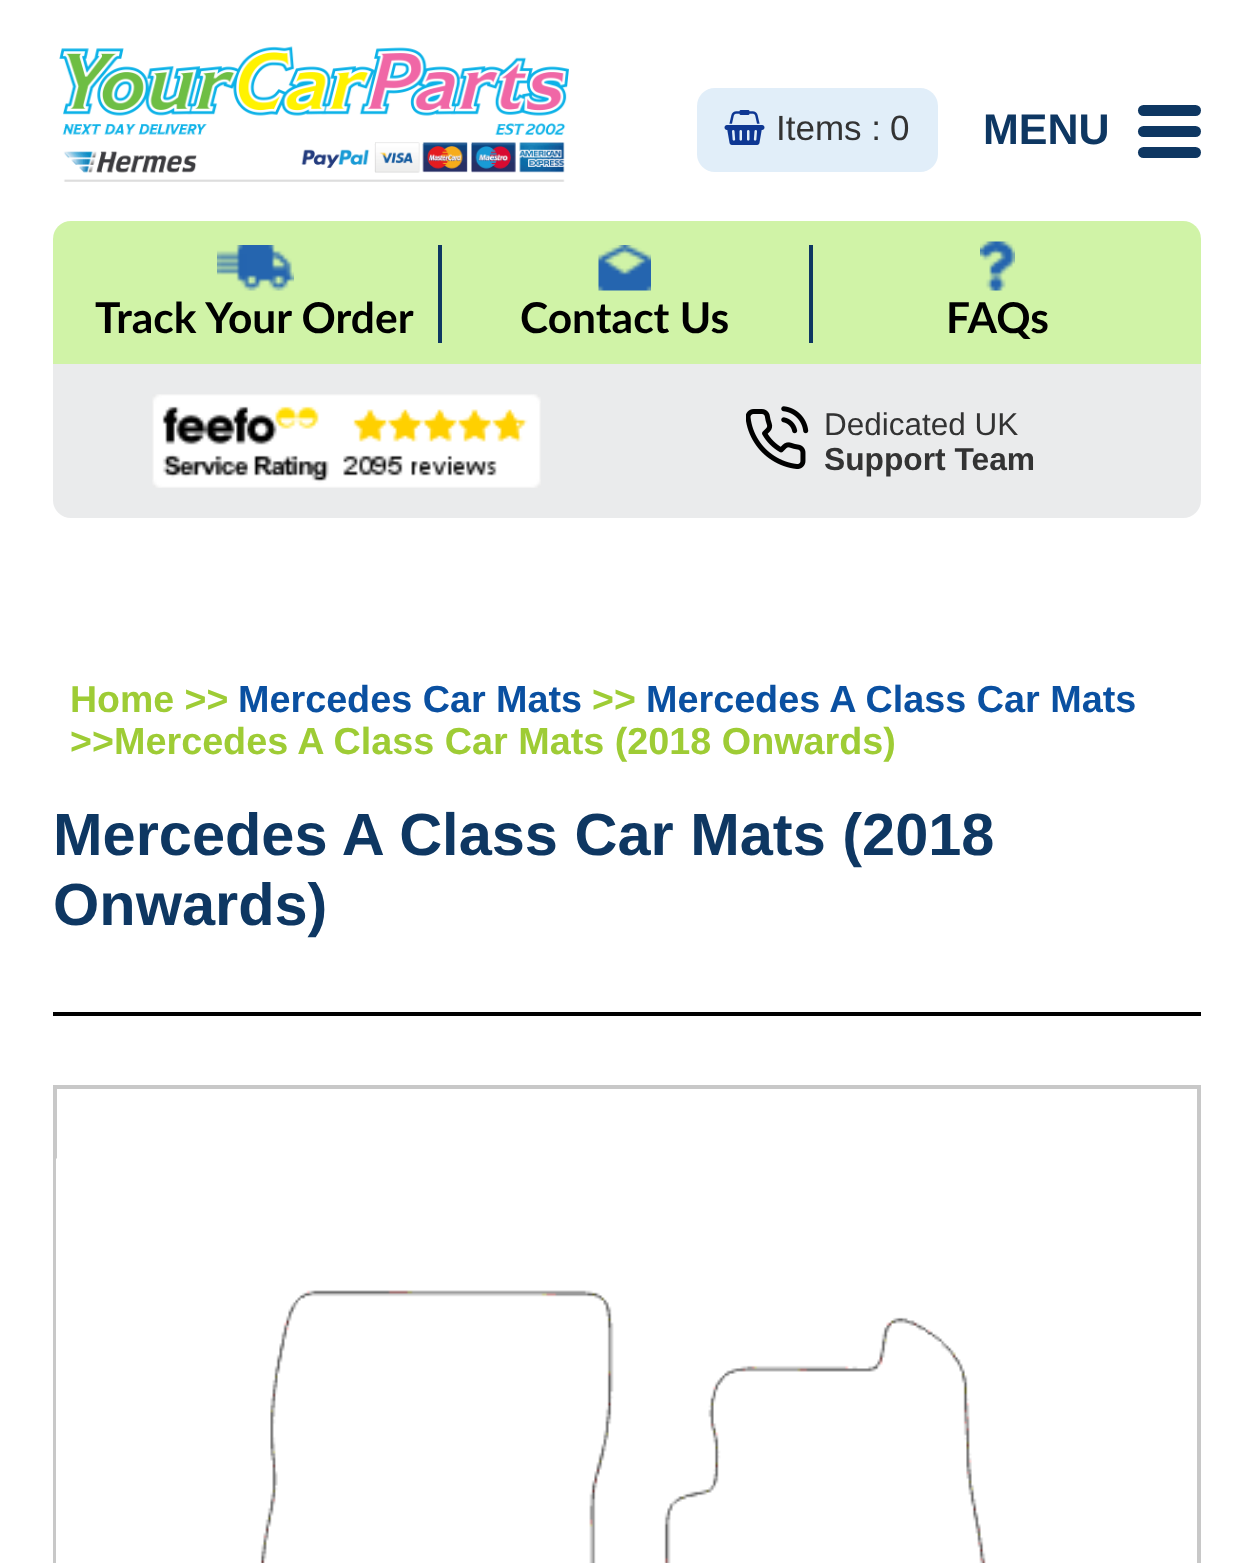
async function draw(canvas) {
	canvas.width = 1250;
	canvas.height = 1563;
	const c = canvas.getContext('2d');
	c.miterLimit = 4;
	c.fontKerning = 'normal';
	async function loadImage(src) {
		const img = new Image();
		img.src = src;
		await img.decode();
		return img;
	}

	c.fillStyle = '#fff';
	c.fillRect(0, 0, 1250, 1563);
	c.font = 'bold 43px Liberation Sans';
	c.fillStyle = '#0e3762';
	c.fillText('MENU', 983, 144);
	c.beginPath();
	c.roundRect(1138, 105, 63, 11, 5.5);
	c.fill();
	c.beginPath();
	c.roundRect(1138, 126, 63, 11, 5.5);
	c.fill();
	c.beginPath();
	c.roundRect(1138, 147, 63, 11, 5.5);
	c.fill();
	c.drawImage(await loadImage('img1.png'), 59, 46, 510, 136);
	c.fillStyle = '#e1eef9';
	c.beginPath();
	c.roundRect(697, 88, 241, 84, 18);
	c.fill();
	c.drawImage(await loadImage('img2.png'), 724, 110, 41, 35);
	c.font = '35px Liberation Sans';
	c.fillStyle = '#333';
	c.fillText('Items :', 776, 140);
	c.fillText('0', 890, 140);
	c.fillStyle = '#d0f3a7';
	c.beginPath();
	c.roundRect(53, 221, 1148, 143, [18, 18, 0, 0]);
	c.fill();
	c.fillStyle = '#0e3762';
	c.fillRect(438, 245, 4, 98);
	c.drawImage(await loadImage('img3.png'), 217, 245, 77, 46);
	c.font = 'bold 42.5px Lato';
	c.fillStyle = '#000';
	c.fillText('Track Your Order', 95, 333);
	c.fillStyle = '#0e3762';
	c.fillRect(809, 245, 4, 98);
	c.drawImage(await loadImage('img4.png'), 598, 245, 53, 46);
	c.fillStyle = '#000';
	c.fillText('Contact Us', 520, 333);
	c.drawImage(await loadImage('img5.png'), 980, 241, 35, 50);
	c.fillText('FAQs', 946, 333);
	c.fillStyle = '#eaebec';
	c.beginPath();
	c.roundRect(53, 364, 1148, 154, [0, 0, 18, 18]);
	c.fill();
	c.drawImage(await loadImage('img6.png'), 152, 394, 389, 94);
	c.drawImage(await loadImage('img7.png'), 746, 406, 63, 63);
	c.font = '31.5px Liberation Sans';
	c.fillStyle = '#333';
	c.fillText('Dedicated UK', 824, 435);
	c.font = 'bold 31.75px Liberation Sans';
	c.fillText('Support Team', 824, 470);
	c.font = 'bold 37.5px Liberation Sans';
	c.fillStyle = '#9ecc35';
	c.fillText('Home >>', 70, 712);
	c.font = 'bold 37.75px Liberation Sans';
	c.fillStyle = '#0a50a1';
	c.fillText('Mercedes Car Mats', 238, 712);
	c.font = 'bold 37.5px Liberation Sans';
	c.fillStyle = '#9ecc35';
	c.fillText('>>', 592, 712);
	c.font = 'bold 37.75px Liberation Sans';
	c.fillStyle = '#0a50a1';
	c.fillText('Mercedes A Class Car Mats', 646, 712);
	c.font = 'bold 37.5px Liberation Sans';
	c.fillStyle = '#9ecc35';
	c.fillText('>>', 70, 754);
	c.font = 'bold 37.75px Liberation Sans';
	c.fillText('Mercedes A Class Car Mats (2018 Onwards)', 114, 754);
	c.fillStyle = '#000';
	c.fillRect(53, 1012, 1148, 4);
	c.font = 'bold 59.5px Liberation Sans';
	c.fillStyle = '#0e3762';
	c.fillText('Mercedes A Class Car Mats (2018', 53, 855);
	c.fillText('Onwards)', 53, 925);
	c.strokeStyle = '#c8c8c8';
	c.lineWidth = 4;
	c.strokeRect(55, 1087, 1144, 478);
	c.drawImage(await loadImage('img8.png'), 56, 1158, 930, 405);
}

draw(document.querySelector('canvas'));
